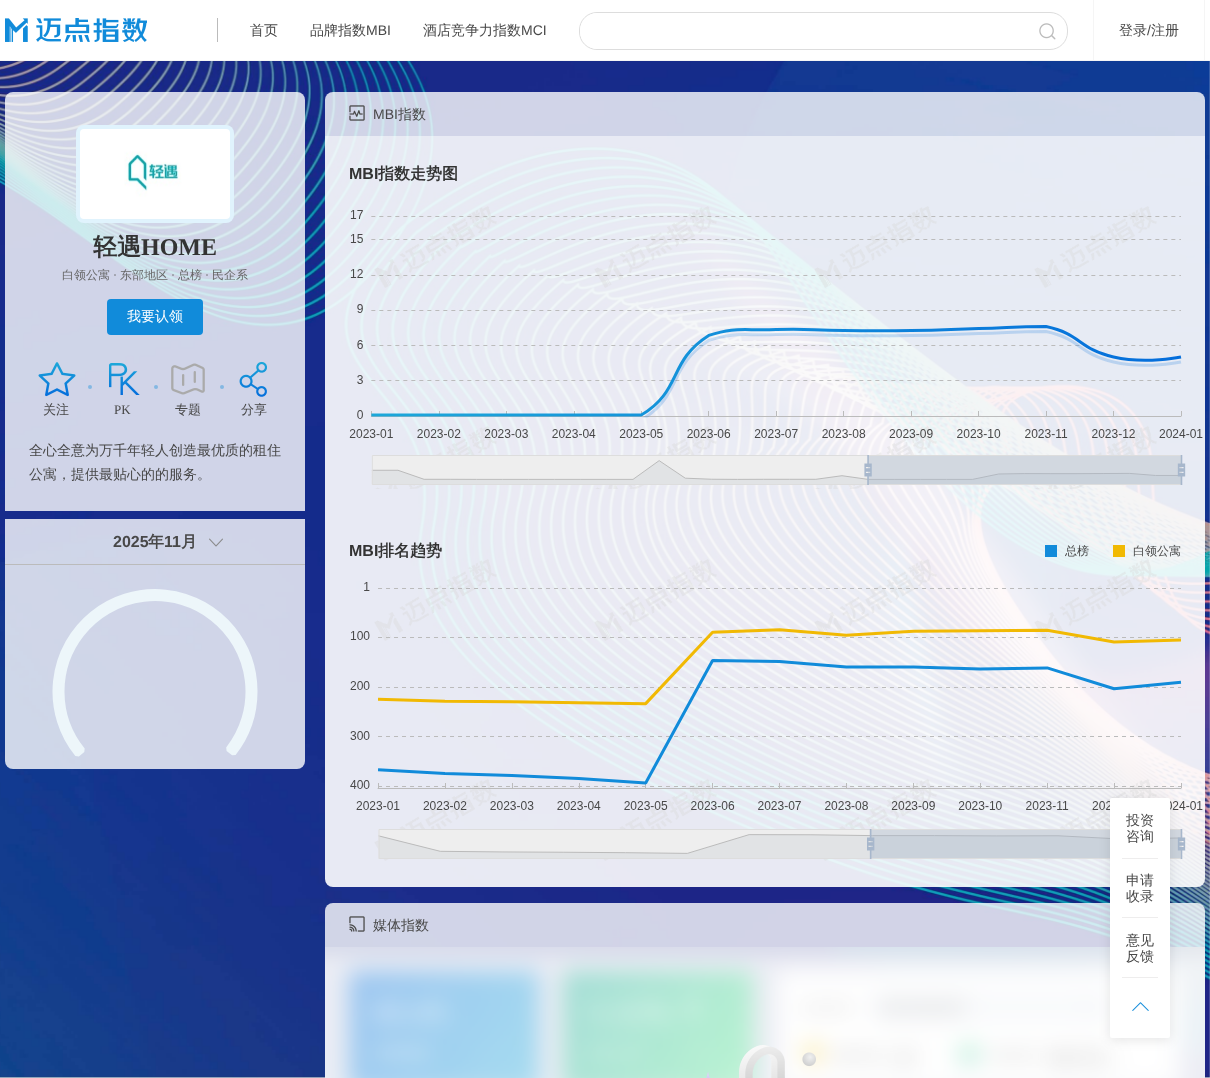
async function draw(canvas) {
	canvas.width = 1210;
	canvas.height = 1078;
	const c = canvas.getContext('2d');
	c.miterLimit = 4;
	c.fontKerning = 'normal';
	async function loadImage(src) {
		const img = new Image();
		img.src = src;
		await img.decode();
		return img;
	}

	c.fillStyle = '#fff';
	c.fillRect(0, 0, 1210, 1078);
	c.drawImage(await loadImage('img1.png'), 0, 61, 1210, 1017);
	c.fillStyle = '#f5f5f5';
	c.fillRect(0, 60, 1210, 1);
	c.drawImage(await loadImage('img2.png'), 5, 18, 142, 24);
	c.fillStyle = '#bbb';
	c.fillRect(217, 18, 1, 24);
	c.font = '500 14px WenQuanYi Zen Hei';
	c.fillStyle = '#484848';
	c.fillText('首页', 250, 35);
	c.fillText('品牌指数', 310, 35);
	c.font = '14px Liberation Sans';
	c.fillText('MBI', 366, 35);
	c.font = '500 14px WenQuanYi Zen Hei';
	c.fillText('酒店竞争力指数', 423, 35);
	c.font = '14px Liberation Sans';
	c.fillText('MCI', 521, 35);
	c.beginPath();
	c.roundRect(579.5, 12.5, 488, 37, 17.5);
	c.strokeStyle = '#ddd';
	c.stroke();
	c.fillStyle = '#fff';
	c.beginPath();
	c.roundRect(580, 13, 401, 36, 18);
	c.fill();
	c.drawImage(await loadImage('img3.png'), 1039, 23, 17, 17);
	c.fillStyle = '#f5f5f5';
	c.fillRect(1204, 0, 1, 60);
	c.fillRect(1093, 0, 1, 60);
	c.font = '500 14px WenQuanYi Zen Hei';
	c.fillStyle = '#484848';
	c.fillText('登录', 1119, 35);
	c.font = '14px Liberation Sans';
	c.fillText('/', 1147, 35);
	c.font = '500 14px WenQuanYi Zen Hei';
	c.fillText('注册', 1151, 35);
	c.fillStyle = '#ffffffcc';
	c.beginPath();
	c.roundRect(5, 92, 300, 419, [8, 8, 0, 0]);
	c.fill();
	c.fillStyle = '#e0f3fd';
	c.beginPath();
	c.roundRect(76, 125, 158, 98, 8);
	c.fill();
	c.drawImage(await loadImage('img4.png'), 80, 129, 150, 90);
	c.font = 'bold 24px WenQuanYi Zen Hei';
	c.fillStyle = '#333';
	c.fillText('轻遇', 93, 255);
	c.font = 'bold 24px Liberation Serif';
	c.fillText('HOME', 141, 255);
	c.font = '500 12px WenQuanYi Zen Hei';
	c.fillStyle = '#666';
	c.fillText('白领公寓', 62, 279);
	c.font = '12px Liberation Serif';
	c.fillText('·', 113, 279);
	c.font = '500 12px WenQuanYi Zen Hei';
	c.fillText('东部地区', 120, 279);
	c.font = '12px Liberation Serif';
	c.fillText('·', 171, 279);
	c.font = '500 12px WenQuanYi Zen Hei';
	c.fillText('总榜', 178, 279);
	c.font = '12px Liberation Serif';
	c.fillText('·', 205, 279);
	c.font = '500 12px WenQuanYi Zen Hei';
	c.fillText('民企系', 212, 279);
	c.fillStyle = '#118bda';
	c.beginPath();
	c.roundRect(107, 299, 96, 36, 4);
	c.fill();
	c.font = '500 14px WenQuanYi Zen Hei';
	c.fillStyle = '#fff';
	c.fillText('我要认领', 127, 321);
	c.drawImage(await loadImage('img5.png'), 38, 362, 38, 35);
	c.fillStyle = '#84b7e2';
	c.beginPath();
	c.arc(90, 387, 2, 0, 2 * Math.PI);
	c.fill();
	c.font = '500 13px WenQuanYi Zen Hei';
	c.fillStyle = '#484848';
	c.fillText('关注', 43, 414);
	c.drawImage(await loadImage('img6.png'), 109, 363, 31, 32);
	c.fillStyle = '#84b7e2';
	c.beginPath();
	c.arc(156, 387, 2, 0, 2 * Math.PI);
	c.fill();
	c.font = '13px Liberation Serif';
	c.fillStyle = '#484848';
	c.fillText('PK', 114, 414);
	c.drawImage(await loadImage('img7.png'), 171, 363, 34, 32);
	c.fillStyle = '#84b7e2';
	c.beginPath();
	c.arc(222, 387, 2, 0, 2 * Math.PI);
	c.fill();
	c.font = '500 13px WenQuanYi Zen Hei';
	c.fillStyle = '#484848';
	c.fillText('专题', 175, 414);
	c.drawImage(await loadImage('img8.png'), 239, 361, 28, 36);
	c.fillText('分享', 241, 414);
	c.font = '500 14px WenQuanYi Zen Hei';
	c.fillText('全心全意为万千年轻人创造最优质的租住', 29, 455);
	c.fillText('公寓，提供最贴心的的服务。', 29, 479);
	c.fillStyle = '#ffffffcc';
	c.beginPath();
	c.roundRect(5, 519, 300, 250, [0, 0, 8, 8]);
	c.fill();
	c.fillStyle = '#bbb';
	c.fillRect(5, 564, 300, 1);
	c.font = 'bold 16px Liberation Sans';
	c.fillStyle = '#484848';
	c.fillText('2025', 113, 547);
	c.font = 'bold 16px WenQuanYi Zen Hei';
	c.fillText('年', 148, 547);
	c.font = 'bold 16px Liberation Sans';
	c.fillText('11', 164, 547);
	c.font = 'bold 16px WenQuanYi Zen Hei';
	c.fillText('月', 181, 547);
	c.drawImage(await loadImage('img9.png'), 209, 538, 14, 9);
	c.drawImage(await loadImage('img10.png'), 52, 589, 206, 168);
	c.fillStyle = '#ffffffcc';
	c.beginPath();
	c.roundRect(325, 92, 880, 44, [8, 8, 0, 0]);
	c.fill();
	c.drawImage(await loadImage('img11.png'), 349, 105, 16, 16);
	c.font = '14px Liberation Sans';
	c.fillStyle = '#484848';
	c.fillText('MBI', 373, 119);
	c.font = '500 14px WenQuanYi Zen Hei';
	c.fillText('指数', 398, 119);
	c.fillStyle = '#ffffffe6';
	c.fillRect(325, 136, 880, 353);
	c.drawImage(await loadImage('img12.png'), 374, 206, 783, 283);
	c.font = 'bold 16px Liberation Sans';
	c.fillStyle = '#333';
	c.fillText('MBI', 349, 179);
	c.font = 'bold 16px WenQuanYi Zen Hei';
	c.fillText('指数走势图', 378, 179);
	c.drawImage(await loadImage('img13.png'), 349, 210, 854, 275);
	c.fillStyle = '#ffffffe6';
	c.beginPath();
	c.roundRect(325, 489, 880, 398, [0, 0, 8, 8]);
	c.fill();
	c.drawImage(await loadImage('img14.png'), 374, 559, 783, 302);
	c.drawImage(await loadImage('img15.png'), 350, 544, 853, 315);
	c.font = 'bold 16px Liberation Sans';
	c.fillStyle = '#333';
	c.fillText('MBI', 349, 556);
	c.font = 'bold 16px WenQuanYi Zen Hei';
	c.fillText('排名趋势', 378, 556);
	c.fillStyle = '#ffffffcc';
	c.beginPath();
	c.roundRect(325, 903, 880, 44, [8, 8, 0, 0]);
	c.fill();
	c.drawImage(await loadImage('img16.png'), 349, 916, 16, 16);
	c.font = '500 14px WenQuanYi Zen Hei';
	c.fillStyle = '#484848';
	c.fillText('媒体指数', 373, 930);
	c.drawImage(await loadImage('img17.png'), 325, 947, 880, 131);
	c.drawImage(await loadImage('img18.png'), 706, 1045, 110, 33);
	c.fillStyle = '#0000001a';
	c.filter = 'blur(6px)';
	c.beginPath();
	c.roundRect(1110, 800, 60, 240, 2);
	c.fill();
	c.filter = 'none';
	c.fillStyle = '#fff';
	c.beginPath();
	c.roundRect(1110, 798, 60, 240, 2);
	c.fill();
	c.fillStyle = '#484848';
	c.fillText('投资', 1126, 825);
	c.fillText('咨询', 1126, 841);
	c.fillStyle = '#eeeded';
	c.fillRect(1122, 858, 36, 1);
	c.fillRect(1122, 917, 36, 1);
	c.fillStyle = '#484848';
	for (const [text, x, y] of [
		['申请', 1126, 885],
		['收录', 1126, 901],
		['意见', 1126, 945],
		['反馈', 1126, 961],
	]) {
		c.fillText(text, x, y);
	}
	c.fillStyle = '#eeeded';
	c.fillRect(1122, 977, 36, 1);
	c.drawImage(await loadImage('img19.png'), 1132, 1002, 17, 9);
}

draw(document.querySelector('canvas'));
